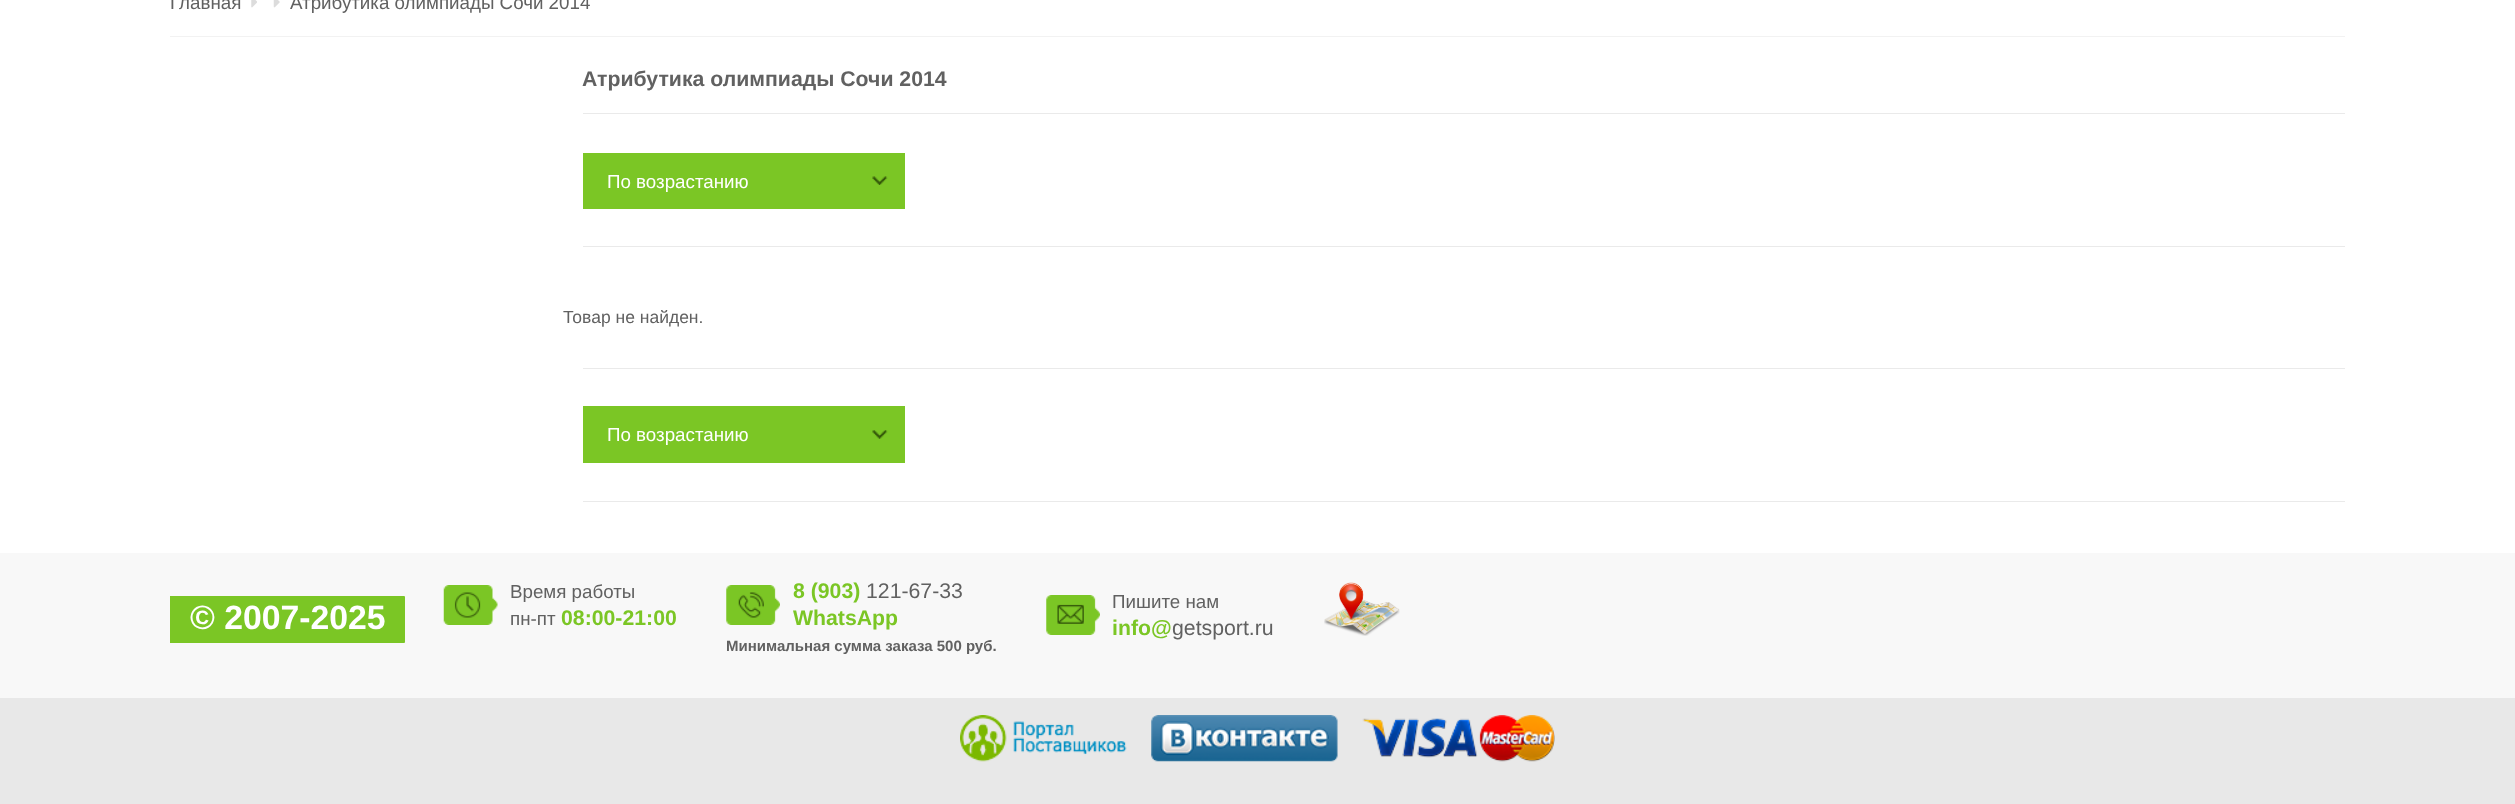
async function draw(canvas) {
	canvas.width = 2515;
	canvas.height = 804;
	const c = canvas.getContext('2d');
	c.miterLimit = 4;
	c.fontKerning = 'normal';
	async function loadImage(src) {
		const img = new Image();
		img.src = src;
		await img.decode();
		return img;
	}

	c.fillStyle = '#fff';
	c.fillRect(0, 0, 2515, 804);
	c.fillStyle = '#f2f2f2';
	c.fillRect(170, 36, 2175, 1);
	c.font = '18.75px Liberation Sans';
	c.fillStyle = '#616161';
	c.fillText('Главная', 170, 9);
	c.drawImage(await loadImage('img1.png'), 251, 0, 6, 8);
	c.drawImage(await loadImage('img2.png'), 273, 0, 7, 8);
	c.fillText('Атрибутика олимпиады Сочи 2014', 290, 9);
	c.font = 'bold 21.25px Liberation Sans';
	c.fillText('Атрибутика олимпиады Сочи 2014', 582, 86);
	c.fillStyle = '#eaeaea';
	c.fillRect(583, 113, 1762, 1);
	c.fillStyle = '#7bc625';
	c.fillRect(583, 153, 322, 56);
	c.font = '18.75px Liberation Sans';
	c.fillStyle = '#fff';
	c.fillText('По возрастанию', 607, 188);
	c.drawImage(await loadImage('img3.png'), 872, 176, 16, 9);
	c.fillStyle = '#eaeaea';
	c.fillRect(583, 246, 1762, 1);
	c.fillRect(583, 368, 1762, 1);
	c.font = '17.5px Liberation Sans';
	c.fillStyle = '#616161';
	c.fillText('Товар не найден.', 563, 323);
	c.fillStyle = '#eaeaea';
	c.fillRect(583, 501, 1762, 1);
	c.fillStyle = '#7bc625';
	c.fillRect(583, 406, 322, 57);
	c.font = '18.75px Liberation Sans';
	c.fillStyle = '#fff';
	c.fillText('По возрастанию', 607, 441);
	c.drawImage(await loadImage('img4.png'), 872, 430, 16, 9);
	c.fillStyle = '#f8f8f8';
	c.fillRect(0, 553, 2515, 145);
	c.fillStyle = '#7bc625';
	c.beginPath();
	c.roundRect(170, 596, 235, 47, [0, 1, 1, 0]);
	c.fill();
	c.font = 'bold 33.75px Liberation Sans';
	c.fillStyle = '#fff';
	c.fillText('© 2007-2025', 190, 629);
	c.drawImage(await loadImage('img5.png'), 443, 585, 55, 40);
	c.font = '18.75px Liberation Sans';
	c.fillStyle = '#616161';
	c.fillText('Время работы', 510, 598);
	c.fillText('пн-пт', 510, 625);
	c.font = 'bold 21.25px Liberation Sans';
	c.fillStyle = '#7bc625';
	c.fillText('08:00-21:00', 561, 625);
	c.drawImage(await loadImage('img6.png'), 726, 585, 54, 40);
	c.fillText('8 (903)', 793, 598);
	c.font = '21.25px Liberation Sans';
	c.fillStyle = '#616161';
	c.fillText('121-67-33', 866, 598);
	c.font = 'bold 21.25px Liberation Sans';
	c.fillStyle = '#7bc625';
	c.fillText('WhatsАpp', 793, 625);
	c.font = 'bold 15px Liberation Sans';
	c.fillStyle = '#616161';
	c.fillText('Минимальная сумма заказа 500 руб.', 726, 651);
	c.drawImage(await loadImage('img7.png'), 1046, 595, 54, 40);
	c.font = '18.75px Liberation Sans';
	c.fillText('Пишите нам', 1112, 608);
	c.font = 'bold 21.25px Liberation Sans';
	c.fillStyle = '#7bc625';
	c.fillText('info@', 1112, 635);
	c.font = '21.25px Liberation Sans';
	c.fillStyle = '#616161';
	c.fillText('getsport.ru', 1172, 635);
	c.drawImage(await loadImage('img8.png'), 1324, 582, 76, 54);
	c.fillStyle = '#e8e8e8';
	c.fillRect(0, 698, 2515, 106);
	c.drawImage(await loadImage('img9.png'), 960, 715, 167, 47);
	c.drawImage(await loadImage('img10.png'), 1151, 715, 187, 47);
	c.drawImage(await loadImage('img11.png'), 1362, 715, 193, 47);
}

draw(document.querySelector('canvas'));
